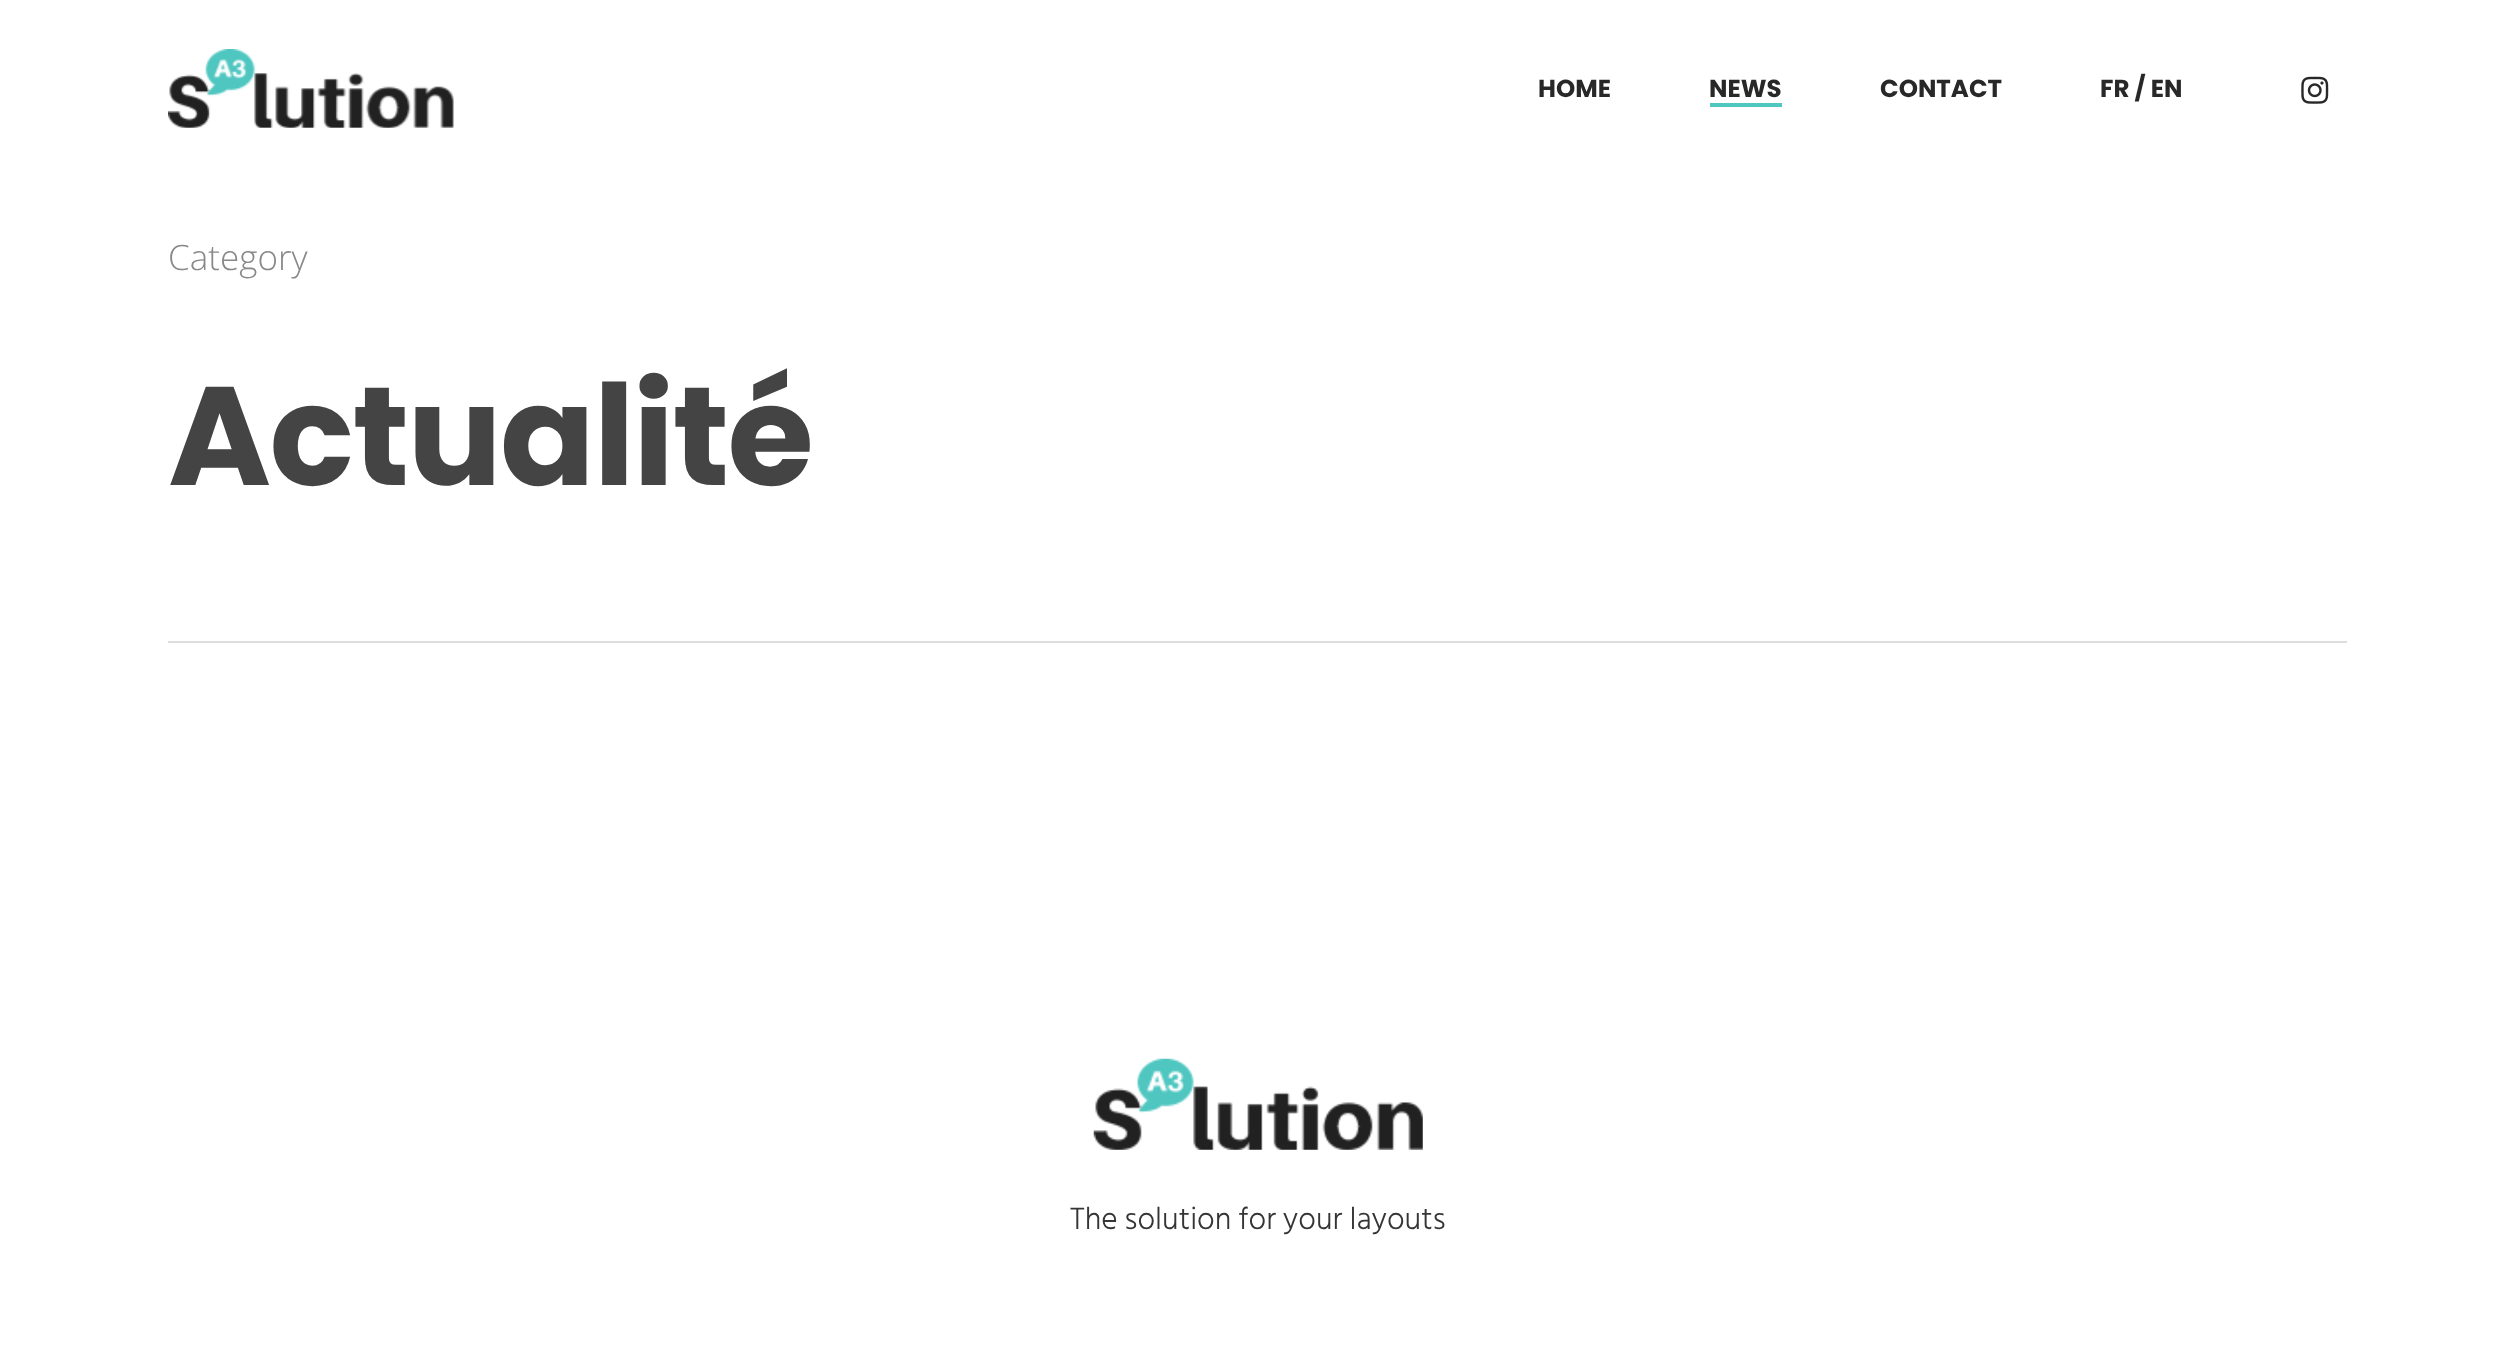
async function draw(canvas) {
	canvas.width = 2514;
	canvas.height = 1352;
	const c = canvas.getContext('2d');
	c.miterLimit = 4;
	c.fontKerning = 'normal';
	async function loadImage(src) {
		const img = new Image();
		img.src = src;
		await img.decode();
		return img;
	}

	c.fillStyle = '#fff';
	c.fillRect(0, 0, 2514, 1352);
	c.drawImage(await loadImage('img1.png'), 168, 49, 286, 79);
	c.font = 'bold 24.5px Poppins';
	c.fillStyle = '#282828';
	c.fillText('HOME', 1538, 97);
	c.fillText('NEWS', 1709, 97);
	c.fillStyle = '#4fc6c0';
	c.fillRect(1710, 103, 72, 4);
	c.fillStyle = '#282828';
	c.fillText('CONTACT', 1880, 97);
	c.fillText('FR / EN', 2100, 97);
	c.drawImage(await loadImage('img2.png'), 2301, 76, 28, 28);
	c.fillStyle = '#ddd';
	c.fillRect(168, 641, 2179, 2);
	c.font = '300 35px Open Sans';
	c.fillStyle = '#888';
	c.fillText('Category', 168, 270);
	c.letterSpacing = '-1.75px';
	c.font = 'bold 140px Poppins';
	c.fillStyle = '#444';
	c.fillText('Actualité', 168, 485);
	c.drawImage(await loadImage('img3.png'), 1093, 1058, 330, 92);
	c.letterSpacing = '0px';
	c.font = '300 31.5px Hind Siliguri';
	c.fillStyle = '#353535';
	c.fillText('The solution for your layouts', 1070, 1229);
}

draw(document.querySelector('canvas'));
